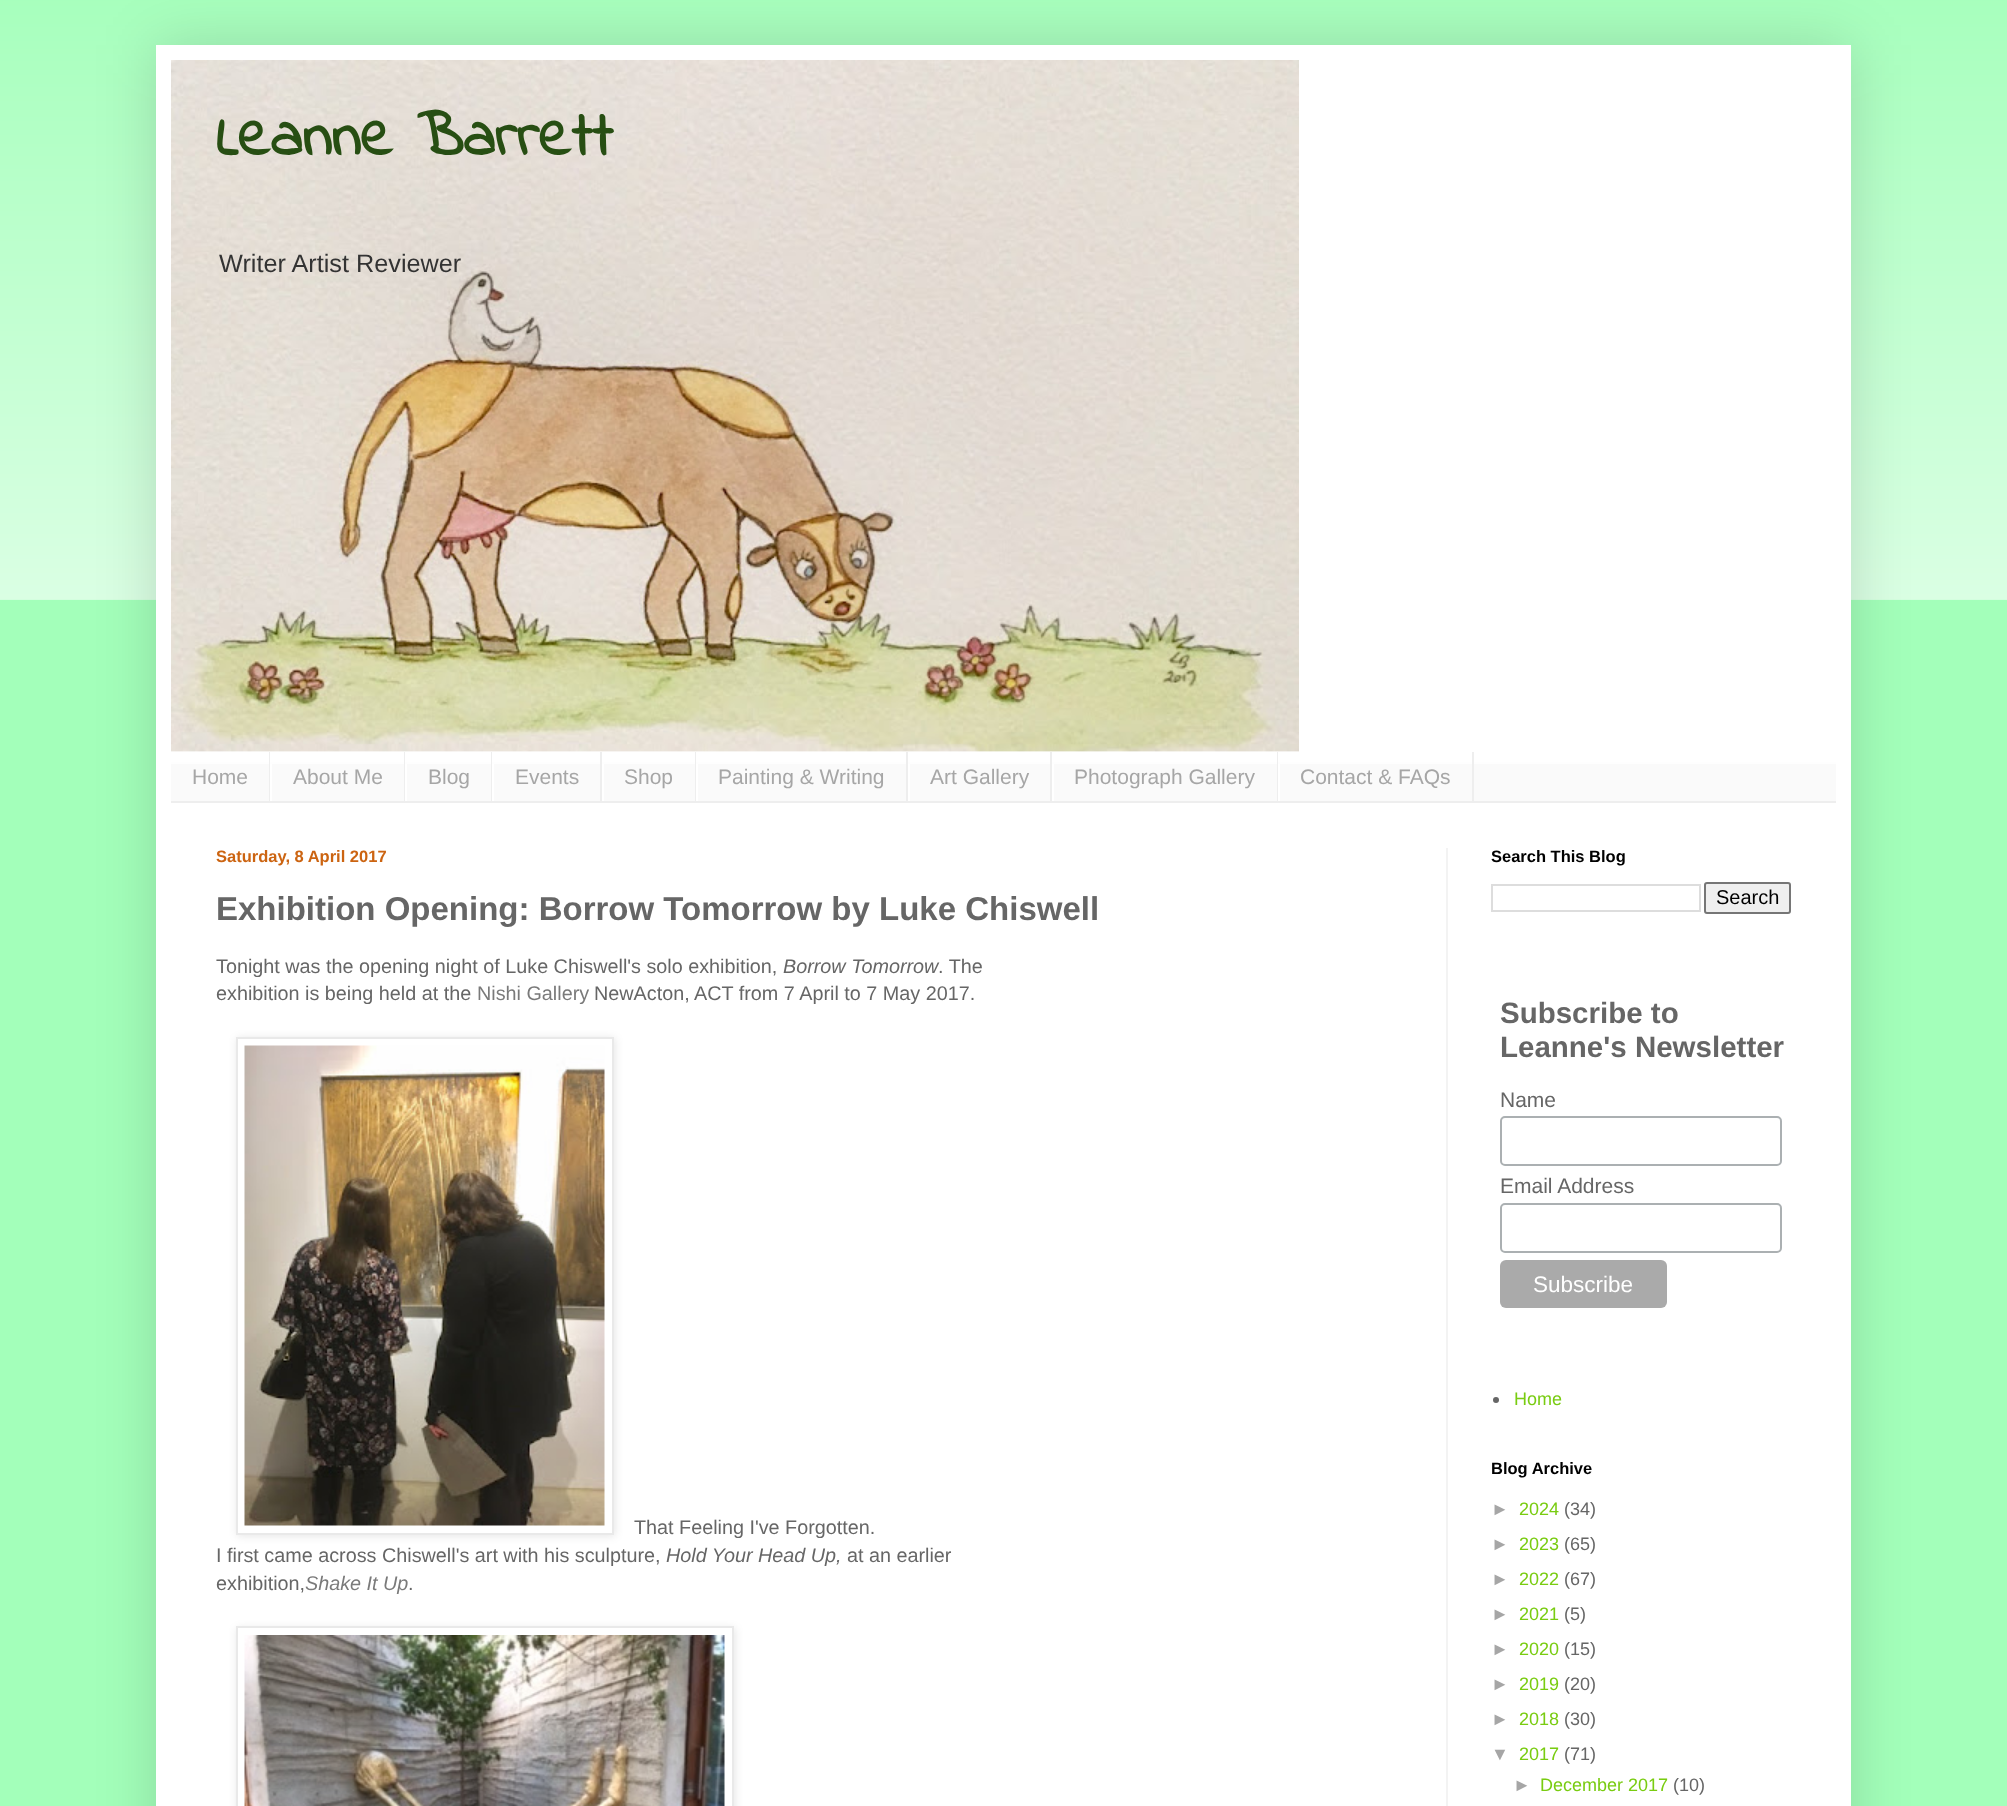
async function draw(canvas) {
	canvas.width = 2007;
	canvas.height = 1806;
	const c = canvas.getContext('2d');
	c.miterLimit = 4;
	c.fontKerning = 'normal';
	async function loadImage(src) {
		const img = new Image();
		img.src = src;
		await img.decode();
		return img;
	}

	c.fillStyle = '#a3ffba';
	c.fillRect(0, 0, 2007, 1806);
	c.drawImage(await loadImage('img1.png'), 0, 0, 2007, 600);
	c.fillStyle = '#00000026';
	c.filter = 'blur(30px)';
	c.beginPath();
	c.rect(156, 45, 1695, 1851);
	c.fill();
	c.filter = 'none';
	c.fillStyle = '#fff';
	c.fillRect(156, 45, 1695, 1761);
	c.drawImage(await loadImage('img2.png'), 171, 60, 1128, 692);
	c.font = 'bold 63px Indie Flower';
	c.fillStyle = '#274e13';
	c.fillText('Leanne Barrett', 216, 155);
	c.font = '25.25px Liberation Sans';
	c.fillStyle = '#333';
	c.fillText('Writer Artist Reviewer', 219, 272);
	c.fillStyle = '#fafafa';
	c.fillRect(171, 753, 1665, 48);
	c.drawImage(await loadImage('img3.png'), 171, 751, 1665, 13);
	c.fillStyle = '#eee';
	c.fillRect(171, 801, 1665, 2);
	c.fillRect(269, 752, 1, 49);
	c.font = '21px Liberation Sans';
	c.fillStyle = '#a6a6a6';
	c.fillText('Home', 192, 784);
	c.fillStyle = '#eee';
	c.fillRect(404, 752, 1, 49);
	c.fillStyle = '#fff';
	c.fillRect(270, 764, 2, 37);
	c.fillStyle = '#a6a6a6';
	c.fillText('About Me', 293, 784);
	c.fillStyle = '#eee';
	c.fillRect(491, 752, 1, 49);
	c.fillStyle = '#fff';
	c.fillRect(405, 764, 2, 37);
	c.fillStyle = '#a6a6a6';
	c.fillText('Blog', 428, 784);
	c.fillStyle = '#eee';
	c.fillRect(600, 752, 2, 49);
	c.fillStyle = '#fff';
	c.fillRect(492, 764, 2, 37);
	c.fillStyle = '#a6a6a6';
	c.fillText('Events', 515, 784);
	c.fillStyle = '#eee';
	c.fillRect(695, 752, 1, 49);
	c.fillStyle = '#fff';
	c.fillRect(602, 764, 2, 37);
	c.fillStyle = '#a6a6a6';
	c.fillText('Shop', 624, 784);
	c.fillStyle = '#eee';
	c.fillRect(906, 752, 2, 49);
	c.fillStyle = '#fff';
	c.fillRect(696, 764, 2, 37);
	c.fillStyle = '#a6a6a6';
	c.fillText('Painting & Writing', 718, 784);
	c.fillStyle = '#eee';
	c.fillRect(1050, 752, 2, 49);
	c.fillStyle = '#fff';
	c.fillRect(908, 764, 2, 37);
	c.fillStyle = '#a6a6a6';
	c.fillText('Art Gallery', 930, 784);
	c.fillStyle = '#eee';
	c.fillRect(1277, 752, 1, 49);
	c.fillStyle = '#fff';
	c.fillRect(1052, 764, 2, 37);
	c.fillStyle = '#a6a6a6';
	c.fillText('Photograph Gallery', 1074, 784);
	c.fillStyle = '#eee';
	c.fillRect(1472, 752, 2, 49);
	c.fillStyle = '#fff';
	c.fillRect(1278, 764, 2, 37);
	c.fillStyle = '#a6a6a6';
	c.fillText('Contact & FAQs', 1300, 784);
	c.fillStyle = '#f3f3f3';
	c.fillRect(1446, 848, 2, 958);
	c.font = 'bold 16.5px Liberation Sans';
	c.fillStyle = '#cc6411';
	c.fillText('Saturday, 8 April 2017', 216, 862);
	c.font = 'bold 33px Liberation Sans';
	c.fillStyle = '#666';
	c.fillText('Exhibition Opening: Borrow Tomorrow by Luke Chiswell', 216, 920);
	c.font = '19.8px Liberation Sans';
	c.fillText('Tonight was the opening night of Luke Chiswell\'s solo exhibition,', 216, 973);
	c.font = 'italic 19.8px Liberation Sans';
	c.fillText('Borrow Tomorrow', 783, 973);
	c.font = '19.8px Liberation Sans';
	c.fillText('. The', 938, 973);
	c.fillText('exhibition is being held at the', 216, 1000);
	c.fillStyle = '#7a7a7a';
	c.fillText('Nishi Gallery', 477, 1000);
	c.fillStyle = '#666';
	c.fillText('NewActon, ACT from 7 April to 7 May 2017.', 594, 1000);
	c.fillStyle = '#0000001a';
	c.filter = 'blur(4px)';
	c.beginPath();
	c.rect(237, 1038, 378, 498);
	c.fill();
	c.filter = 'none';
	c.fillStyle = '#fff';
	c.beginPath();
	c.rect(237, 1038, 376, 496);
	c.fill();
	c.strokeStyle = '#e9e9e9';
	c.lineWidth = 2;
	c.stroke();
	c.drawImage(await loadImage('img4.png'), 244, 1045, 361, 481);
	c.fillStyle = '#666';
	c.fillText('That Feeling I\'ve Forgotten.', 634, 1534);
	c.fillText('I first came across Chiswell\'s art with his sculpture,', 216, 1562);
	c.font = 'italic 19.8px Liberation Sans';
	c.fillText('Hold Your Head Up,', 666, 1562);
	c.font = '19.8px Liberation Sans';
	c.fillText('at an earlier', 847, 1562);
	c.fillText('exhibition,', 216, 1590);
	c.font = 'italic 19.8px Liberation Sans';
	c.fillStyle = '#7a7a7a';
	c.fillText('Shake It Up', 305, 1590);
	c.font = '19.8px Liberation Sans';
	c.fillStyle = '#666';
	c.fillText('.', 408, 1590);
	c.fillStyle = '#0000001a';
	c.filter = 'blur(4px)';
	c.beginPath();
	c.rect(237, 1628, 498, 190);
	c.fill();
	c.filter = 'none';
	c.fillStyle = '#fff';
	c.beginPath();
	c.rect(237, 1627, 496, 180);
	c.fill();
	c.stroke();
	c.drawImage(await loadImage('img5.png'), 244, 1635, 481, 171);
	c.font = 'bold 16.5px Liberation Sans';
	c.fillStyle = '#000';
	c.fillText('Search This Blog', 1491, 862);
	c.strokeStyle = '#ddd';
	c.strokeRect(1492, 885, 208, 26);
	c.fillStyle = '#efefef';
	c.beginPath();
	c.roundRect(1705, 883, 85, 30, 2);
	c.fill();
	c.strokeStyle = '#767676';
	c.stroke();
	c.font = '20px Liberation Sans';
	c.fillStyle = '#000';
	c.fillText('Search', 1716, 904);
	c.font = 'bold 29.5px Liberation Sans';
	c.fillStyle = '#666';
	c.fillText('Subscribe to', 1500, 1023);
	c.fillText('Leanne\'s Newsletter', 1500, 1057);
	c.font = '21px Liberation Sans';
	c.fillText('Name', 1500, 1107);
	c.beginPath();
	c.roundRect(1501, 1117, 280, 48, 4);
	c.strokeStyle = '#abb0b2';
	c.stroke();
	c.fillText('Email Address', 1500, 1193);
	c.beginPath();
	c.roundRect(1501, 1204, 280, 48, 4);
	c.stroke();
	c.fillStyle = '#aaa';
	c.beginPath();
	c.roundRect(1500, 1260, 167, 48, 6);
	c.fill();
	c.font = '22.5px Liberation Sans';
	c.fillStyle = '#fff';
	c.fillText('Subscribe', 1533, 1292);
	c.fillStyle = '#666';
	c.beginPath();
	c.arc(1496, 1400, 3, 0, 2 * Math.PI);
	c.fill();
	c.font = '18px Liberation Sans';
	c.fillStyle = '#79cc11';
	c.fillText('Home', 1514, 1405);
	c.font = 'bold 16.5px Liberation Sans';
	c.fillStyle = '#000';
	c.fillText('Blog Archive', 1491, 1474);
	c.font = '18px Liberation Sans';
	c.fillStyle = '#a6a6a6';
	c.fillText('►', 1491, 1515);
	c.fillStyle = '#79cc11';
	c.fillText('2024', 1519, 1515);
	c.fillStyle = '#666';
	c.fillText('(34)', 1564, 1515);
	c.fillStyle = '#a6a6a6';
	c.fillText('►', 1491, 1550);
	c.fillStyle = '#79cc11';
	c.fillText('2023', 1519, 1550);
	c.fillStyle = '#666';
	c.fillText('(65)', 1564, 1550);
	c.fillStyle = '#a6a6a6';
	c.fillText('►', 1491, 1585);
	c.fillStyle = '#79cc11';
	c.fillText('2022', 1519, 1585);
	c.fillStyle = '#666';
	c.fillText('(67)', 1564, 1585);
	c.fillStyle = '#a6a6a6';
	c.fillText('►', 1491, 1620);
	c.fillStyle = '#79cc11';
	c.fillText('2021', 1519, 1620);
	c.fillStyle = '#666';
	c.fillText('(5)', 1564, 1620);
	c.fillStyle = '#a6a6a6';
	c.fillText('►', 1491, 1655);
	c.fillStyle = '#79cc11';
	c.fillText('2020', 1519, 1655);
	c.fillStyle = '#666';
	c.fillText('(15)', 1564, 1655);
	c.fillStyle = '#a6a6a6';
	c.fillText('►', 1491, 1690);
	c.fillStyle = '#79cc11';
	c.fillText('2019', 1519, 1690);
	c.fillStyle = '#666';
	c.fillText('(20)', 1564, 1690);
	c.fillStyle = '#a6a6a6';
	c.fillText('►', 1491, 1725);
	c.fillStyle = '#79cc11';
	c.fillText('2018', 1519, 1725);
	c.fillStyle = '#666';
	c.fillText('(30)', 1564, 1725);
	c.fillStyle = '#a6a6a6';
	c.fillText('▼', 1491, 1760);
	c.fillStyle = '#79cc11';
	c.fillText('2017', 1519, 1760);
	c.fillStyle = '#666';
	c.fillText('(71)', 1564, 1760);
	c.fillStyle = '#a6a6a6';
	c.fillText('►', 1513, 1791);
	c.fillStyle = '#79cc11';
	c.fillText('December 2017', 1540, 1791);
	c.fillStyle = '#666';
	c.fillText('(10)', 1673, 1791);
}

draw(document.querySelector('canvas'));
